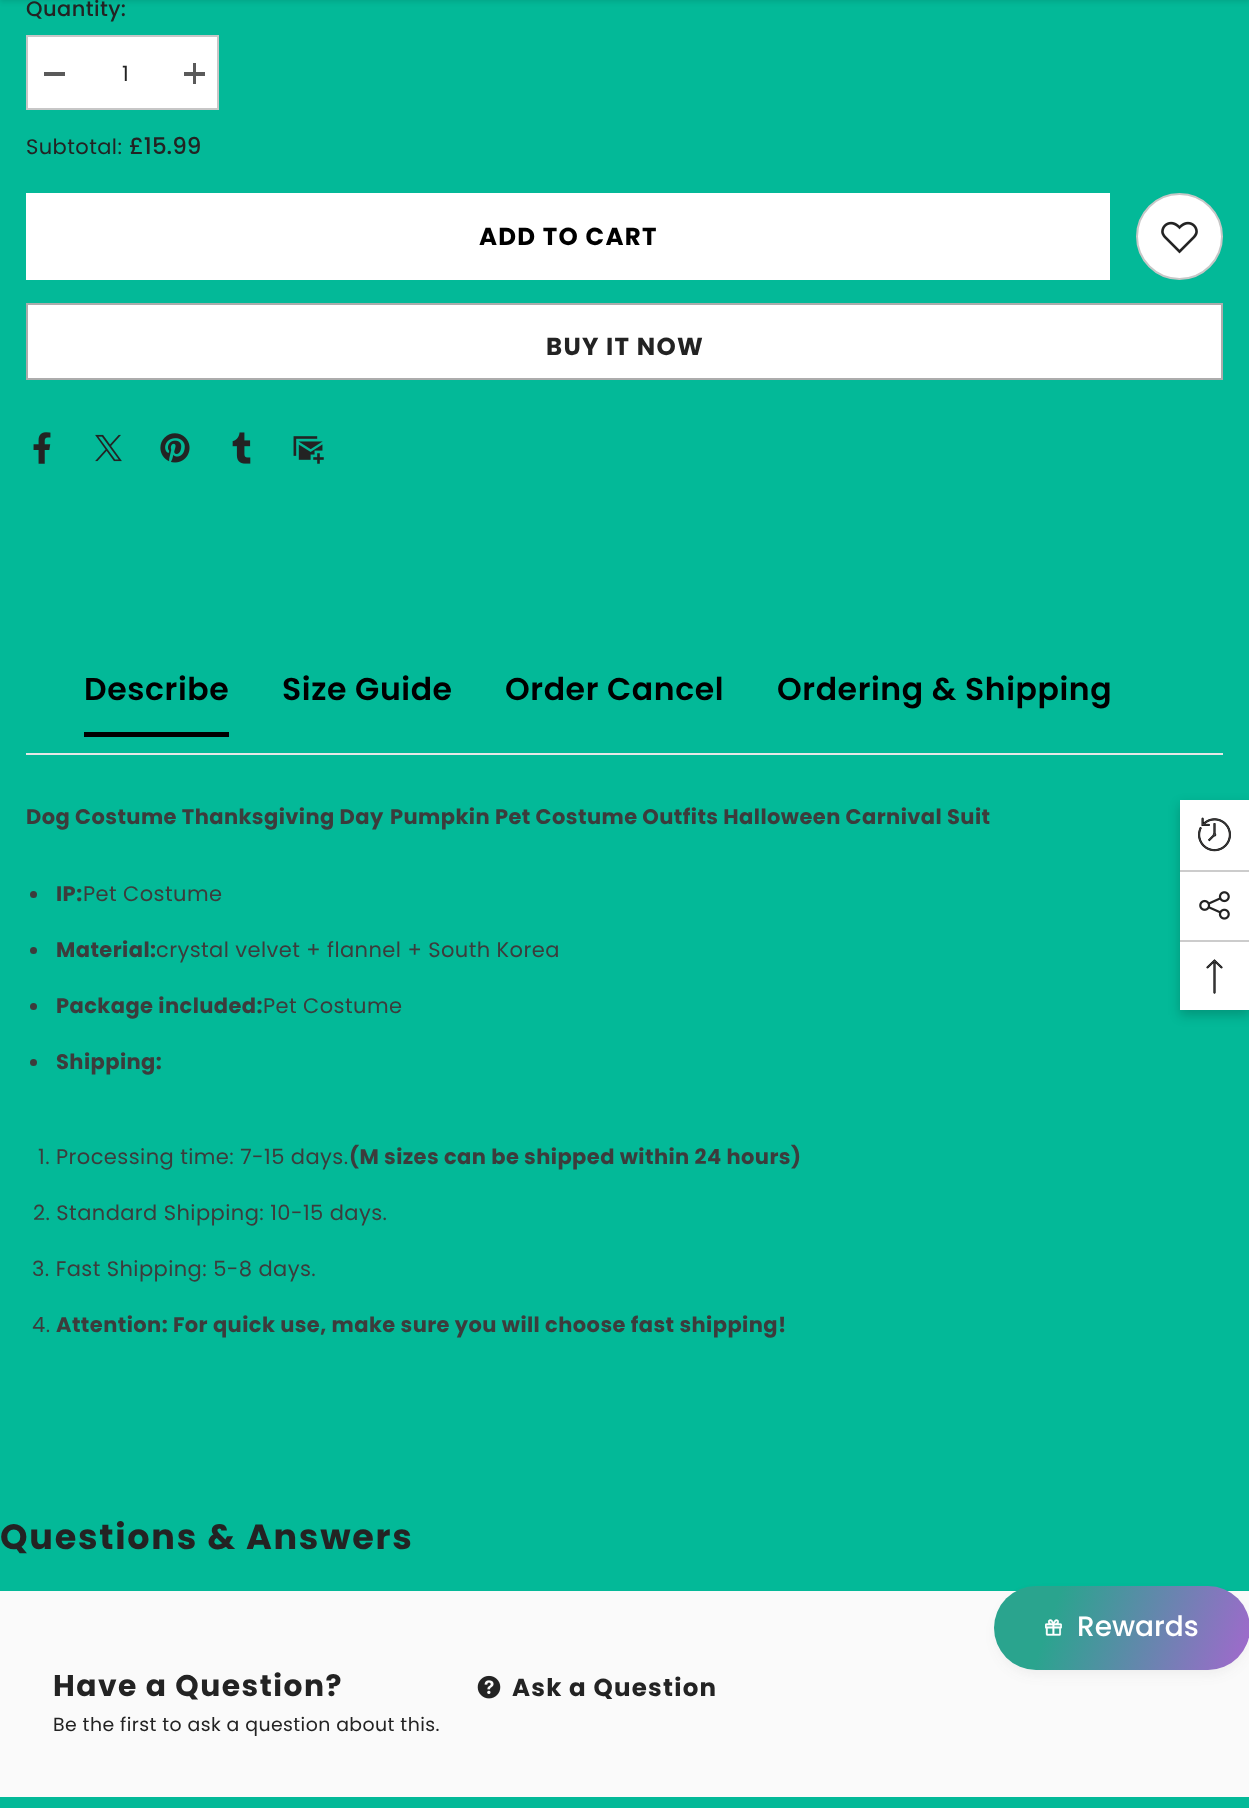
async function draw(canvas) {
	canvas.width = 1249;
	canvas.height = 1808;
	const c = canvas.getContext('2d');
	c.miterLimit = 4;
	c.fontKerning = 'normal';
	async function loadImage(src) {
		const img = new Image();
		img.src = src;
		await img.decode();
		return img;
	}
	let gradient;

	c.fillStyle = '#03b998';
	c.fillRect(0, 0, 1249, 1808);
	c.fillStyle = '#0000001a';
	c.filter = 'blur(2.5px)';
	c.beginPath();
	c.rect(0, -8, 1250, 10);
	c.fill();
	c.filter = 'none';
	c.letterSpacing = '0.42px';
	c.font = '500 21px Poppins';
	c.fillStyle = '#232323';
	c.fillText('Quantity:', 26, 16);
	c.fillStyle = '#fff';
	c.beginPath();
	c.rect(27, 36, 191, 73);
	c.fill();
	c.strokeStyle = '#c7c7c7';
	c.lineWidth = 2;
	c.stroke();
	c.fillStyle = '#5a5a5a';
	c.fillRect(44, 72, 21, 4);
	c.font = '21px Poppins';
	c.fillStyle = '#232323';
	c.fillText('1', 122, 81);
	c.fillStyle = '#5a5a5a';
	c.fillRect(184, 72, 21, 4);
	c.fillRect(193, 63, 3, 21);
	c.fillStyle = '#232323';
	c.fillText('Subtotal:', 26, 154);
	c.letterSpacing = '0px';
	c.font = '500 23px Poppins';
	c.fillText('£15.99', 129, 154);
	c.fillStyle = '#fff';
	c.fillRect(26, 193, 1084, 87);
	c.letterSpacing = '1.25px';
	c.font = 'bold 24.5px Poppins';
	c.fillStyle = '#000';
	c.fillText('ADD TO CART', 479, 245);
	c.fillStyle = '#fff';
	c.beginPath();
	c.arc(1179.5, 236.5, 42.5, 0, 2 * Math.PI);
	c.fill();
	c.stroke();
	c.drawImage(await loadImage('img1.png'), 1161, 221, 37, 33);
	c.beginPath();
	c.rect(27, 304, 1195, 75);
	c.fill();
	c.strokeStyle = '#acacac';
	c.stroke();
	c.fillStyle = '#232323';
	c.fillText('BUY IT NOW', 546, 355);
	c.drawImage(await loadImage('img2.png'), 33, 432, 18, 32);
	c.drawImage(await loadImage('img3.png'), 95, 434, 27, 28);
	c.drawImage(await loadImage('img4.png'), 160, 433, 30, 30);
	c.drawImage(await loadImage('img5.png'), 232, 432, 19, 32);
	c.drawImage(await loadImage('img6.png'), 293, 436, 31, 28);
	c.fillStyle = '#e6e6e6';
	c.fillRect(26, 753, 1197, 2);
	c.letterSpacing = '0.6px';
	c.font = '600 31.5px Poppins';
	c.fillStyle = '#000';
	c.fillText('Describe', 84, 700);
	c.fillRect(84, 732, 145, 5);
	for (const [text, x, y] of [
		['Size Guide', 282, 700],
		['Order Cancel', 505, 700],
		['Ordering & Shipping', 777, 700],
	]) {
		c.fillText(text, x, y);
	}
	c.letterSpacing = '0.42px';
	c.font = 'bold 21px Poppins';
	c.fillStyle = '#3c3c3c';
	c.fillText('Dog Costume Thanksgiving Day', 26, 824);
	c.fillText('Pumpkin Pet Costume Outfits Halloween Carnival Suit', 390, 824);
	c.beginPath();
	c.arc(33.5, 894.5, 3.5, 0, 2 * Math.PI);
	c.fill();
	c.fillText('IP:', 56, 901);
	c.font = '21px Poppins';
	c.fillText('Pet Costume', 83, 901);
	c.beginPath();
	c.arc(33.5, 950.5, 3.5, 0, 2 * Math.PI);
	c.fill();
	c.font = 'bold 21px Poppins';
	c.fillText('Material:', 56, 957);
	c.font = '21px Poppins';
	c.fillText('crystal velvet + flannel + South Korea', 156, 957);
	c.beginPath();
	c.arc(33.5, 1006.5, 3.5, 0, 2 * Math.PI);
	c.fill();
	c.font = 'bold 21px Poppins';
	c.fillText('Package included:', 56, 1013);
	c.font = '21px Poppins';
	c.fillText('Pet Costume', 263, 1013);
	c.beginPath();
	c.arc(33.5, 1062.5, 3.5, 0, 2 * Math.PI);
	c.fill();
	c.font = 'bold 21px Poppins';
	c.fillText('Shipping:', 56, 1069);
	c.font = '21px Poppins';
	c.fillText('1. Processing time: 7-15 days.', 38, 1164);
	c.font = 'bold 21px Poppins';
	c.fillText('(M sizes can be shipped within 24 hours)', 349, 1164);
	c.font = '21px Poppins';
	for (const [text, x, y] of [
		['2. Standard Shipping: 10-15 days.', 33, 1220],
		['3. Fast Shipping: 5-8 days.', 32, 1276],
		['4.', 32, 1332],
	]) {
		c.fillText(text, x, y);
	}
	c.font = 'bold 21px Poppins';
	c.fillText('Attention: For quick use, make sure you will choose fast shipping!', 56, 1332);
	c.letterSpacing = '1.75px';
	c.font = 'bold 35px Poppins';
	c.fillStyle = '#232323';
	c.fillText('Questions & Answers', 0, 1549);
	c.fillStyle = '#fafafa';
	c.fillRect(0, 1591, 1249, 206);
	c.letterSpacing = '1.5px';
	c.font = 'bold 29.75px Poppins';
	c.fillStyle = '#232323';
	c.fillText('Have a Question?', 53, 1696);
	c.letterSpacing = '0.42px';
	c.font = '18.9px Poppins';
	c.fillText('Be the first to ask a question about this.', 53, 1731);
	c.drawImage(await loadImage('img7.png'), 477, 1675, 24, 24);
	c.letterSpacing = '1.25px';
	c.font = 'bold 24.5px Poppins';
	c.fillText('Ask a Question', 512, 1696);
	c.fillStyle = '#00000033';
	c.filter = 'blur(6px)';
	c.beginPath();
	c.rect(1180, 805, 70, 210);
	c.fill();
	c.filter = 'none';
	c.fillStyle = '#fff';
	c.fillRect(1180, 800, 69, 210);
	c.drawImage(await loadImage('img8.png'), 1198, 817, 33, 35);
	c.fillStyle = '#ccc';
	c.fillRect(1180, 870, 69, 2);
	c.drawImage(await loadImage('img9.png'), 1199, 891, 31, 29);
	c.fillRect(1180, 940, 69, 2);
	c.drawImage(await loadImage('img10.png'), 1206, 959, 17, 35);
	c.fillStyle = '#44444414';
	c.filter = 'blur(7px)';
	c.beginPath();
	c.roundRect(998, 1596, 248, 77, 38.5);
	c.fill();
	c.filter = 'none';
	gradient = c.createLinearGradient(995, 1583, 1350, 1709);
	gradient.addColorStop(0.17, '#2aa48e');
	gradient.addColorStop(1, '#e248ef');
	c.fillStyle = gradient;
	c.beginPath();
	c.roundRect(994, 1586, 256, 84, 42);
	c.fill();
	c.drawImage(await loadImage('img11.png'), 1045, 1619, 17, 17);
	c.letterSpacing = '0px';
	c.font = '500 28px Poppins';
	c.fillStyle = '#fff';
	c.fillText('Rewards', 1077, 1636);
}

draw(document.querySelector('canvas'));
